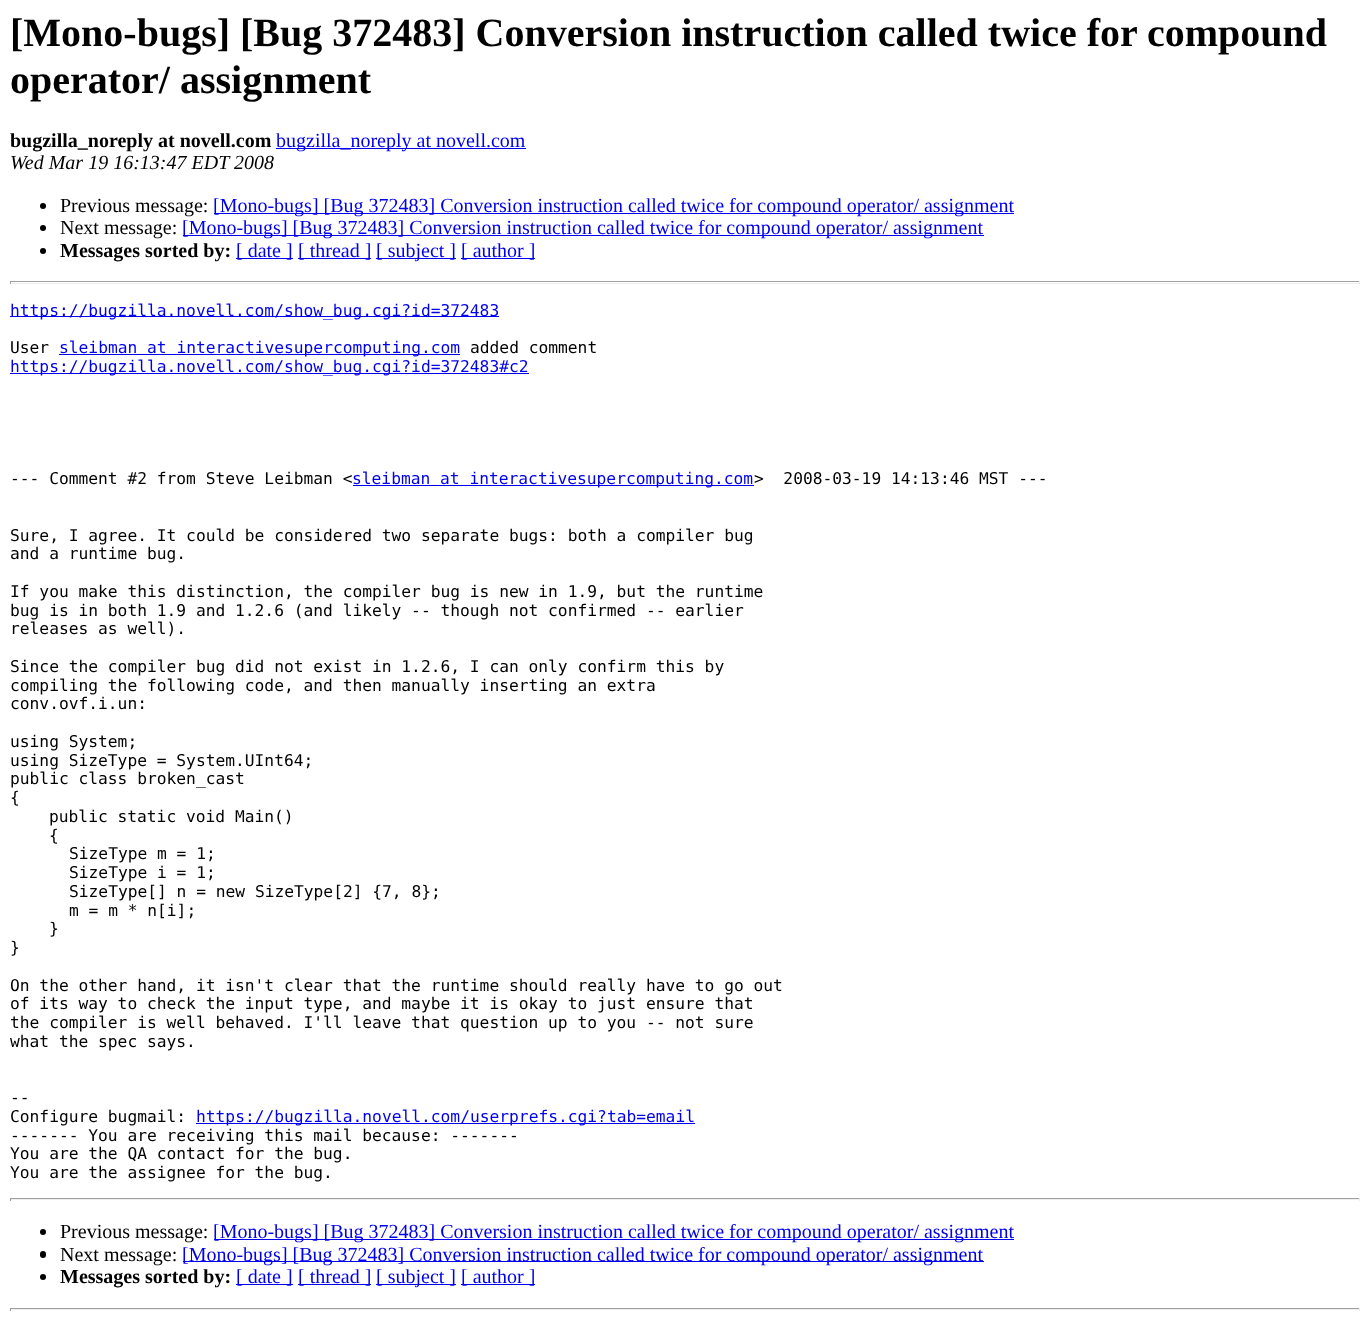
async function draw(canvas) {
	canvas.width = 1370;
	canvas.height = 1333;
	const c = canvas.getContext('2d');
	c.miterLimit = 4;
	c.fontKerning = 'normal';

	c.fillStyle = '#fff';
	c.fillRect(0, 0, 1370, 1333);
	c.font = 'bold 40px Liberation Serif';
	c.fillStyle = '#000';
	c.fillText('[Mono-bugs] [Bug 372483] Conversion instruction called twice for compound', 10, 46);
	c.fillText('operator/ assignment', 10, 93);
	c.font = 'bold 20px Liberation Serif';
	c.fillText('bugzilla_noreply at novell.com', 10, 147);
	c.fillStyle = '#00e';
	c.fillRect(276, 148, 250, 1);
	c.font = '20px Liberation Serif';
	c.fillText('bugzilla_noreply at novell.com', 276, 147);
	c.font = 'italic 20px Liberation Serif';
	c.fillStyle = '#000';
	c.fillText('Wed Mar 19 16:13:47 EDT 2008', 10, 169);
	c.beginPath();
	c.arc(43, 206, 3, 0, 2 * Math.PI);
	c.fill();
	c.font = '20px Liberation Serif';
	c.fillText('Previous message:', 60, 212);
	c.fillStyle = '#00e';
	c.fillRect(214, 213, 800, 1);
	c.fillText('[Mono-bugs] [Bug 372483] Conversion instruction called twice for compound operator/ assignment', 213, 212);
	c.fillStyle = '#000';
	c.beginPath();
	c.arc(43, 228, 3, 0, 2 * Math.PI);
	c.fill();
	c.fillText('Next message:', 60, 234);
	c.fillStyle = '#00e';
	c.fillRect(183, 235, 801, 1);
	c.fillText('[Mono-bugs] [Bug 372483] Conversion instruction called twice for compound operator/ assignment', 182, 234);
	c.fillStyle = '#000';
	c.beginPath();
	c.arc(43, 251, 3, 0, 2 * Math.PI);
	c.fill();
	c.font = 'bold 20px Liberation Serif';
	c.fillText('Messages sorted by:', 60, 257);
	c.fillStyle = '#00e';
	c.fillRect(236, 258, 57, 1);
	c.font = '20px Liberation Serif';
	c.fillText('[ date ]', 236, 257);
	c.fillRect(298, 258, 73, 1);
	c.fillText('[ thread ]', 298, 257);
	c.fillRect(376, 258, 80, 1);
	c.fillText('[ subject ]', 376, 257);
	c.fillRect(461, 258, 74, 1);
	c.fillText('[ author ]', 461, 257);
	for (const [x, y, w, h, color] of [
		[10, 281, 1350, 1, '#9f9f9f'],
		[1359, 281, 1, 3, '#eee'],
		[10, 283, 1350, 1, '#eee'],
		[10, 281, 1, 3, '#9f9f9f'],
		[10, 316, 489, 1, '#00e'],
	]) {
		c.fillStyle = color;
		c.fillRect(x, y, w, h);
	}
	c.font = '16.25px DejaVu Sans Mono';
	c.fillText('https://bugzilla.novell.com/show_bug.cgi?id=372483', 10, 316);
	c.fillStyle = '#000';
	c.fillText('User', 10, 353);
	c.fillStyle = '#00e';
	c.fillRect(59, 354, 401, 1);
	c.fillText('sleibman at interactivesupercomputing.com', 59, 353);
	c.fillStyle = '#000';
	c.fillText('added comment', 470, 353);
	c.fillStyle = '#00e';
	c.fillRect(10, 373, 519, 1);
	c.fillText('https://bugzilla.novell.com/show_bug.cgi?id=372483#c2', 10, 372);
	c.fillStyle = '#000';
	c.fillText('--- Comment #2 from Steve Leibman <', 10, 484);
	c.fillStyle = '#00e';
	c.fillRect(353, 485, 401, 1);
	c.fillText('sleibman at interactivesupercomputing.com', 352, 484);
	c.fillStyle = '#000';
	for (const [text, x, y] of [
		['>  2008-03-19 14:13:46 MST ---', 754, 484],
		['Sure, I agree. It could be considered two separate bugs: both a compiler bug', 10, 541],
		['and a runtime bug.', 10, 559],
		['If you make this distinction, the compiler bug is new in 1.9, but the runtime', 10, 597],
		['bug is in both 1.9 and 1.2.6 (and likely -- though not confirmed -- earlier', 10, 616],
		['releases as well).', 10, 634],
		['Since the compiler bug did not exist in 1.2.6, I can only confirm this by', 10, 672],
		['compiling the following code, and then manually inserting an extra', 10, 691],
		['conv.ovf.i.un:', 10, 709],
		['using System;', 10, 747],
		['using SizeType = System.UInt64;', 10, 766],
		['public class broken_cast', 10, 784],
		['{', 10, 803],
		['public static void Main()', 49, 822],
		['{', 49, 841],
		['SizeType m = 1;', 69, 859],
		['SizeType i = 1;', 69, 878],
		['SizeType[] n = new SizeType[2] {7, 8};', 69, 897],
		['m = m * n[i];', 69, 916],
		['}', 49, 934],
		['}', 10, 953],
		['On the other hand, it isn\'t clear that the runtime should really have to go out', 10, 991],
		['of its way to check the input type, and maybe it is okay to just ensure that', 10, 1009],
		['the compiler is well behaved. I\'ll leave that question up to you -- not sure', 10, 1028],
		['what the spec says.', 10, 1047],
		['--', 10, 1103],
		['Configure bugmail:', 10, 1122],
	]) {
		c.fillText(text, x, y);
	}
	c.fillStyle = '#00e';
	c.fillRect(196, 1123, 499, 1);
	c.fillText('https://bugzilla.novell.com/userprefs.cgi?tab=email', 196, 1122);
	c.fillStyle = '#000';
	for (const [text, x, y] of [
		['------- You are receiving this mail because: -------', 10, 1141],
		['You are the QA contact for the bug.', 10, 1159],
		['You are the assignee for the bug.', 10, 1178],
	]) {
		c.fillText(text, x, y);
	}
	for (const [x, y, w, h, color] of [
		[10, 1198, 1350, 1, '#9f9f9f'],
		[1359, 1198, 1, 3, '#eee'],
		[10, 1199, 1350, 1, '#eee'],
		[10, 1198, 1, 3, '#9f9f9f'],
	]) {
		c.fillStyle = color;
		c.fillRect(x, y, w, h);
	}
	c.fillStyle = '#000';
	c.beginPath();
	c.arc(43, 1232, 3, 0, 2 * Math.PI);
	c.fill();
	c.font = '20px Liberation Serif';
	c.fillText('Previous message:', 60, 1238);
	c.fillStyle = '#00e';
	c.fillRect(214, 1239, 800, 1);
	c.fillText('[Mono-bugs] [Bug 372483] Conversion instruction called twice for compound operator/ assignment', 213, 1238);
	c.fillStyle = '#000';
	c.beginPath();
	c.roundRect(40, 1251, 6, 7, 3);
	c.fill();
	c.fillText('Next message:', 60, 1261);
	c.fillStyle = '#00e';
	c.fillRect(183, 1261, 801, 1);
	c.fillText('[Mono-bugs] [Bug 372483] Conversion instruction called twice for compound operator/ assignment', 182, 1261);
	c.fillStyle = '#000';
	c.beginPath();
	c.arc(43, 1277, 3, 0, 2 * Math.PI);
	c.fill();
	c.font = 'bold 20px Liberation Serif';
	c.fillText('Messages sorted by:', 60, 1283);
	c.fillStyle = '#00e';
	c.fillRect(236, 1284, 57, 1);
	c.font = '20px Liberation Serif';
	c.fillText('[ date ]', 236, 1283);
	c.fillRect(298, 1284, 73, 1);
	c.fillText('[ thread ]', 298, 1283);
	c.fillRect(376, 1284, 80, 1);
	c.fillText('[ subject ]', 376, 1283);
	c.fillRect(461, 1284, 74, 1);
	c.fillText('[ author ]', 461, 1283);
	for (const [x, y, w, h, color] of [
		[10, 1308, 1350, 1, '#9f9f9f'],
		[1359, 1308, 1, 3, '#eee'],
		[10, 1309, 1350, 1, '#eee'],
		[10, 1308, 1, 3, '#9f9f9f'],
	]) {
		c.fillStyle = color;
		c.fillRect(x, y, w, h);
	}
}

draw(document.querySelector('canvas'));
